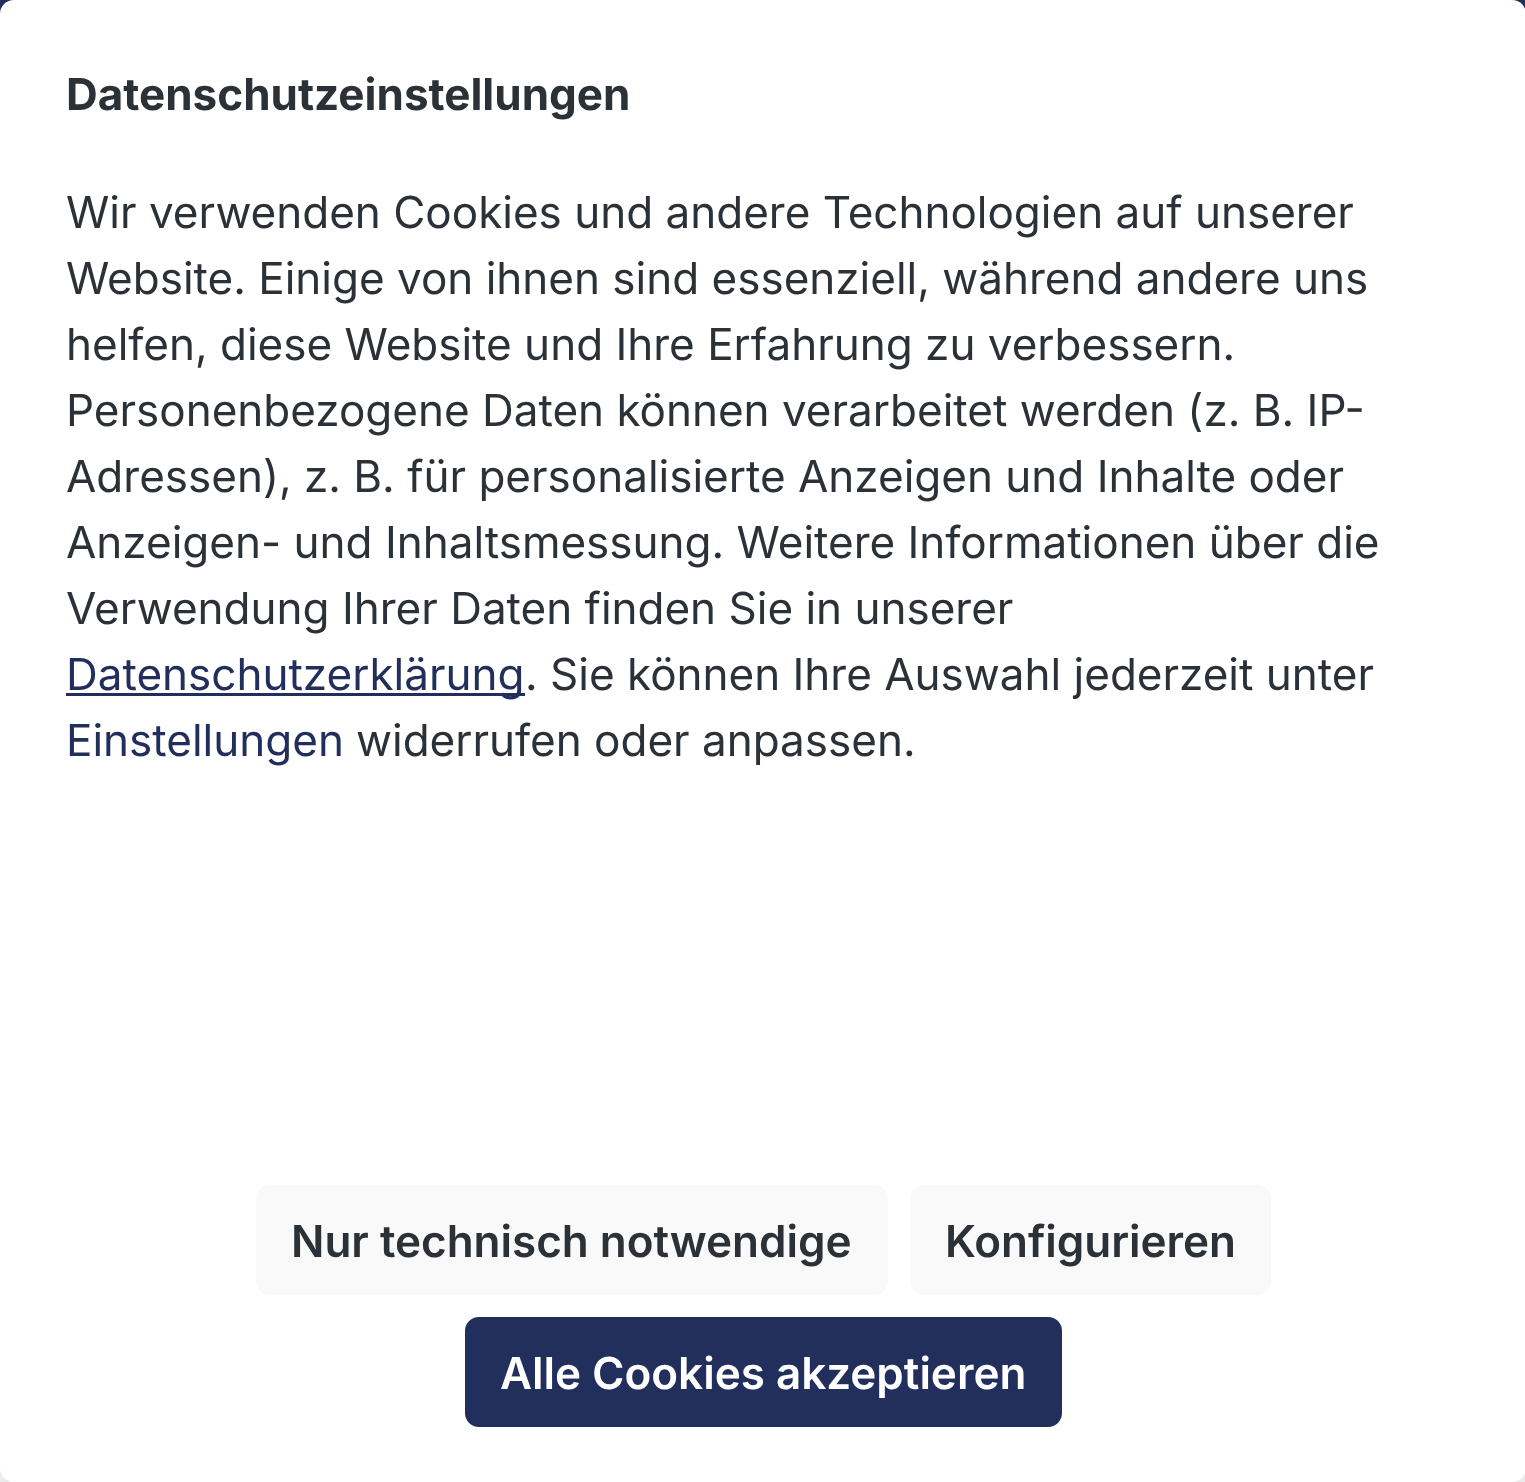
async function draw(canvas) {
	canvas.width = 1525;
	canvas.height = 1482;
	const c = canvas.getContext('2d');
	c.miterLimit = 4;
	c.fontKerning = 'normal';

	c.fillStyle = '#fff';
	c.fillRect(0, 0, 1525, 1482);
	c.fillStyle = '#222f5c';
	c.fillRect(0, 0, 1525, 14);
	c.fillStyle = '#00000033';
	c.filter = 'blur(59px)';
	c.beginPath();
	c.rect(17, 135, 1493, 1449);
	c.fill();
	c.filter = 'none';
	c.fillStyle = '#fff';
	c.beginPath();
	c.roundRect(0, 0, 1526, 1482, 14);
	c.fill();
	c.font = 'bold 44px Inter';
	c.fillStyle = '#2b3136';
	c.fillText('Datenschutzeinstellungen', 66, 110);
	c.font = '44px Inter';
	for (const [text, x, y] of [
		['Wir verwenden Cookies und andere Technologien auf unserer', 66, 228],
		['Website. Einige von ihnen sind essenziell, während andere uns', 66, 294],
		['helfen, diese Website und Ihre Erfahrung zu verbessern.', 66, 360],
		['Personenbezogene Daten können verarbeitet werden (z. B. IP-', 66, 426],
		['Adressen), z. B. für personalisierte Anzeigen und Inhalte oder', 66, 492],
		['Anzeigen- und Inhaltsmessung. Weitere Informationen über die', 66, 558],
		['Verwendung Ihrer Daten finden Sie in unserer', 66, 624],
	]) {
		c.fillText(text, x, y);
	}
	c.fillStyle = '#222f5c';
	c.fillRect(66, 693, 459, 3);
	c.fillText('Datenschutzerklärung', 66, 690);
	c.fillStyle = '#2b3136';
	c.fillText('. Sie können Ihre Auswahl jederzeit unter', 525, 690);
	c.fillStyle = '#222f5c';
	c.fillText('Einstellungen', 66, 756);
	c.fillStyle = '#2b3136';
	c.fillText('widerrufen oder anpassen.', 356, 756);
	c.fillStyle = '#f9f9f9';
	c.beginPath();
	c.roundRect(256, 1185, 632, 110, 14);
	c.fill();
	c.font = '600 44px Inter';
	c.fillStyle = '#2b3136';
	c.fillText('Nur technisch notwendige', 291, 1257);
	c.fillStyle = '#f9f9f9';
	c.beginPath();
	c.roundRect(910, 1185, 361, 110, 14);
	c.fill();
	c.fillStyle = '#2b3136';
	c.fillText('Konfigurieren', 945, 1257);
	c.fillStyle = '#222f5c';
	c.beginPath();
	c.roundRect(466.5, 1318.5, 594, 107, 12.5);
	c.fill();
	c.strokeStyle = '#222f5c';
	c.lineWidth = 3;
	c.stroke();
	c.fillStyle = '#fff';
	c.fillText('Alle Cookies akzeptieren', 500, 1389);
}

draw(document.querySelector('canvas'));
